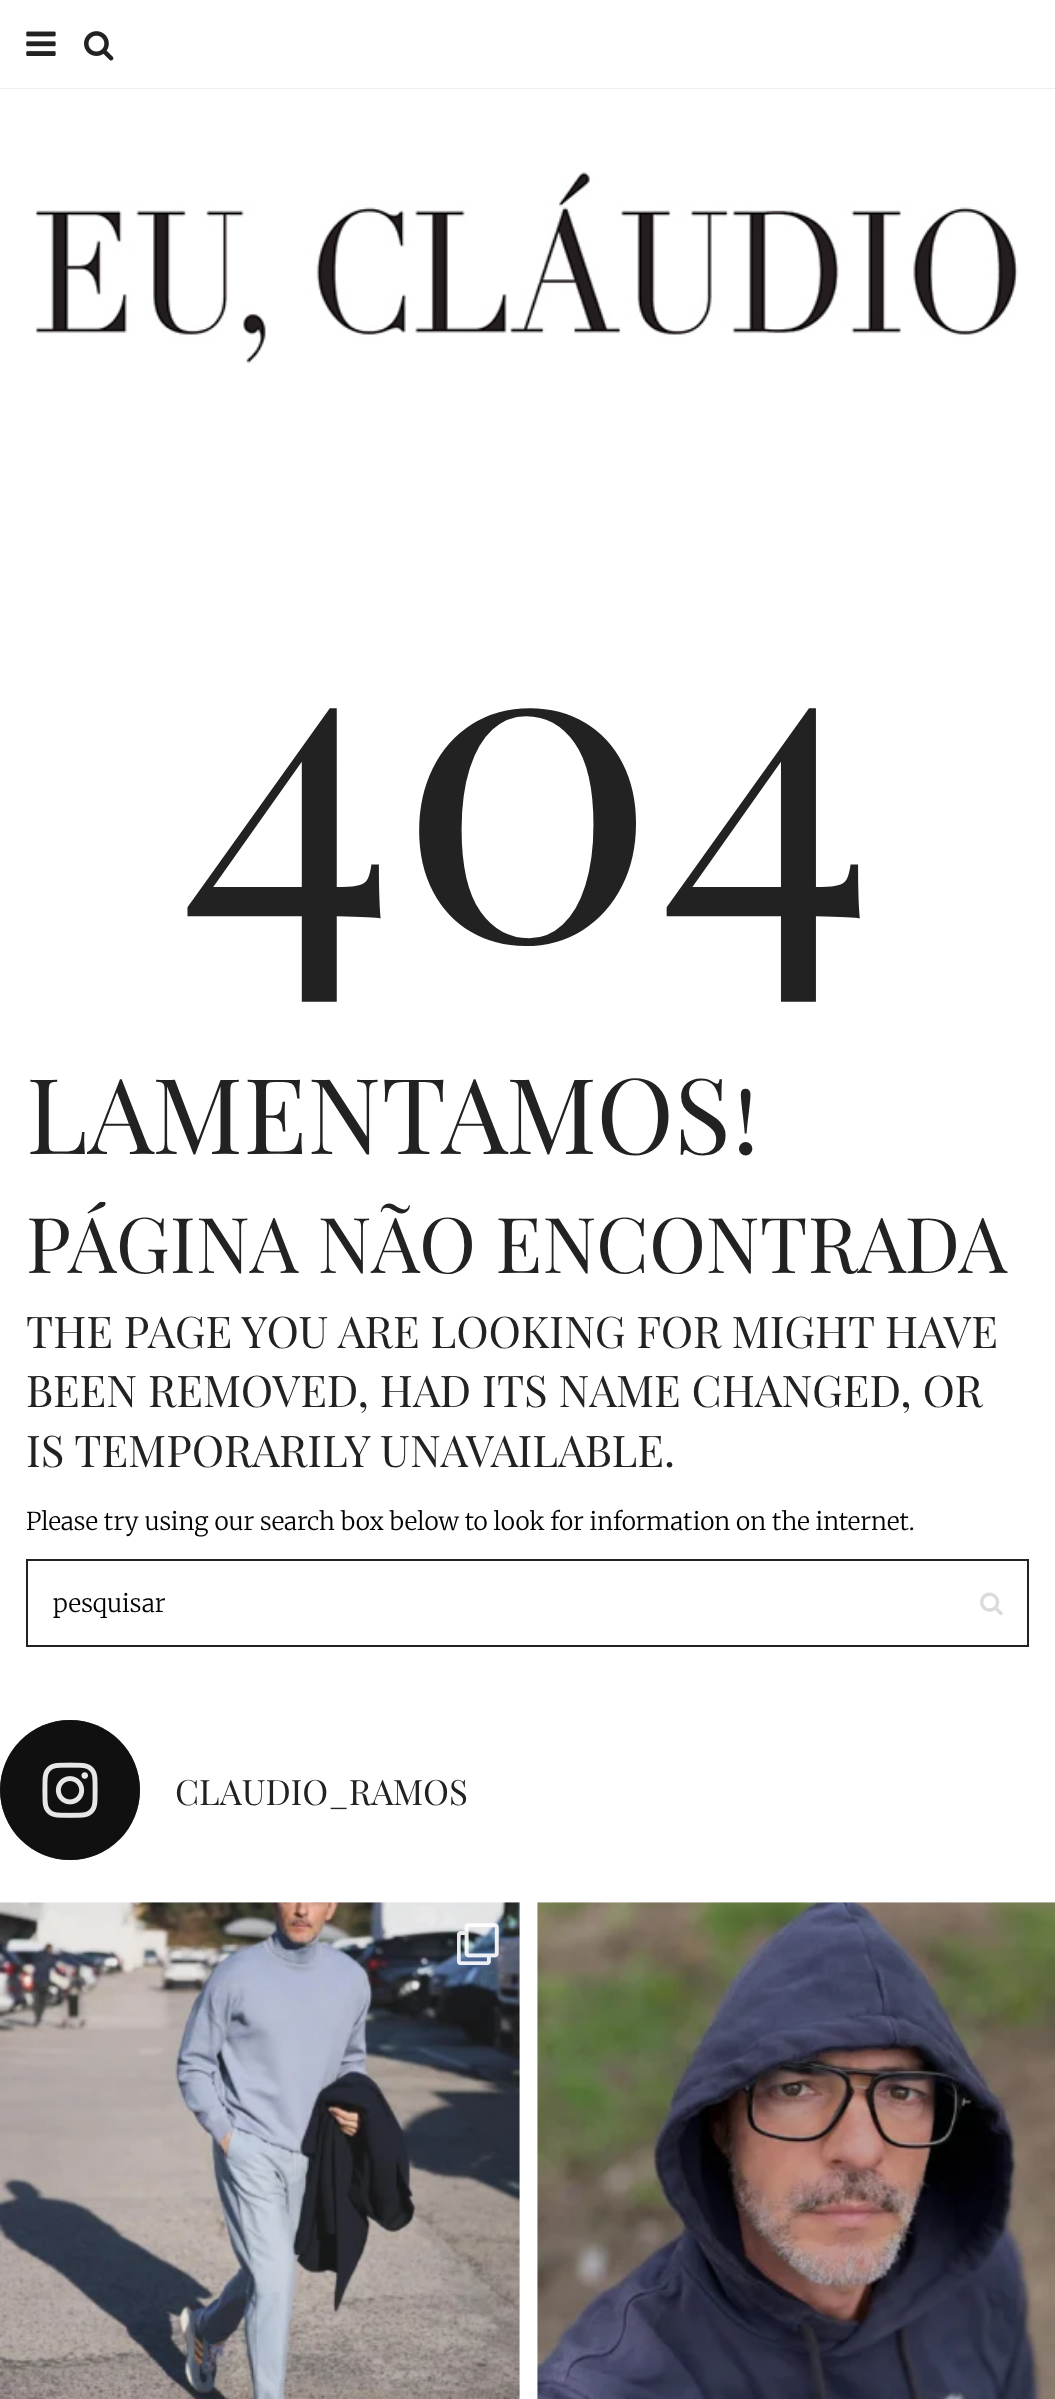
async function draw(canvas) {
	canvas.width = 1055;
	canvas.height = 2399;
	const c = canvas.getContext('2d');
	c.miterLimit = 4;
	c.fontKerning = 'normal';
	async function loadImage(src) {
		const img = new Image();
		img.src = src;
		await img.decode();
		return img;
	}

	c.fillStyle = '#fff';
	c.fillRect(0, 0, 1055, 2399);
	c.fillStyle = '#eee';
	c.fillRect(0, 88, 1055, 1);
	c.drawImage(await loadImage('img1.png'), 26, 31, 30, 25);
	c.drawImage(await loadImage('img2.png'), 84, 31, 30, 30);
	c.drawImage(await loadImage('img3.png'), 36, 172, 982, 192);
	c.font = '438px Playfair Display SC';
	c.fillStyle = '#222';
	c.fillText('404', 180, 940);
	c.font = '105px Playfair Display SC';
	c.fillText('LAMENTAMOS!', 26, 1154);
	c.save();
	c.beginPath();
	c.rect(26, 1202, 1003, 81);
	c.clip();
	c.font = '77px Playfair Display SC';
	c.fillText('PÁGINA NÃO ENCONTRADA', 26, 1273);
	c.restore();
	c.font = '43.75px Playfair Display SC';
	for (const [text, x, y] of [
		['THE PAGE YOU ARE LOOKING FOR MIGHT HAVE', 26, 1348],
		['BEEN REMOVED, HAD ITS NAME CHANGED, OR', 26, 1407],
		['IS TEMPORARILY UNAVAILABLE.', 26, 1467],
	]) {
		c.fillText(text, x, y);
	}
	c.font = '300 24.5px Merriweather';
	c.fillStyle = '#000';
	c.fillText('Please try using our search box below to look for information on the internet.', 26, 1530);
	c.strokeStyle = '#222';
	c.lineWidth = 2;
	c.strokeRect(27, 1560, 1001, 86);
	c.save();
	c.beginPath();
	c.rect(53, 1582, 950, 42);
	c.clip();
	c.fillText('pesquisar', 53, 1612);
	c.restore();
	c.drawImage(await loadImage('img4.png'), 980, 1592, 23, 24);
	c.fillStyle = '#333';
	c.beginPath();
	c.arc(70, 1790, 70, 0, 2 * Math.PI);
	c.fill();
	c.fillStyle = '#000000ad';
	c.beginPath();
	c.arc(70, 1790, 70, 0, 2 * Math.PI);
	c.fill();
	c.drawImage(await loadImage('img5.png'), 42, 1762, 56, 56);
	c.font = '35px Playfair Display SC';
	c.fillStyle = '#222';
	c.fillText('CLAUDIO_RAMOS', 175, 1805);
	c.drawImage(await loadImage('img6.png'), 0, 1902, 520, 497);
	c.drawImage(await loadImage('img7.png'), 457, 1923, 42, 42);
	c.drawImage(await loadImage('img8.png'), 537, 1902, 518, 497);
}

draw(document.querySelector('canvas'));
